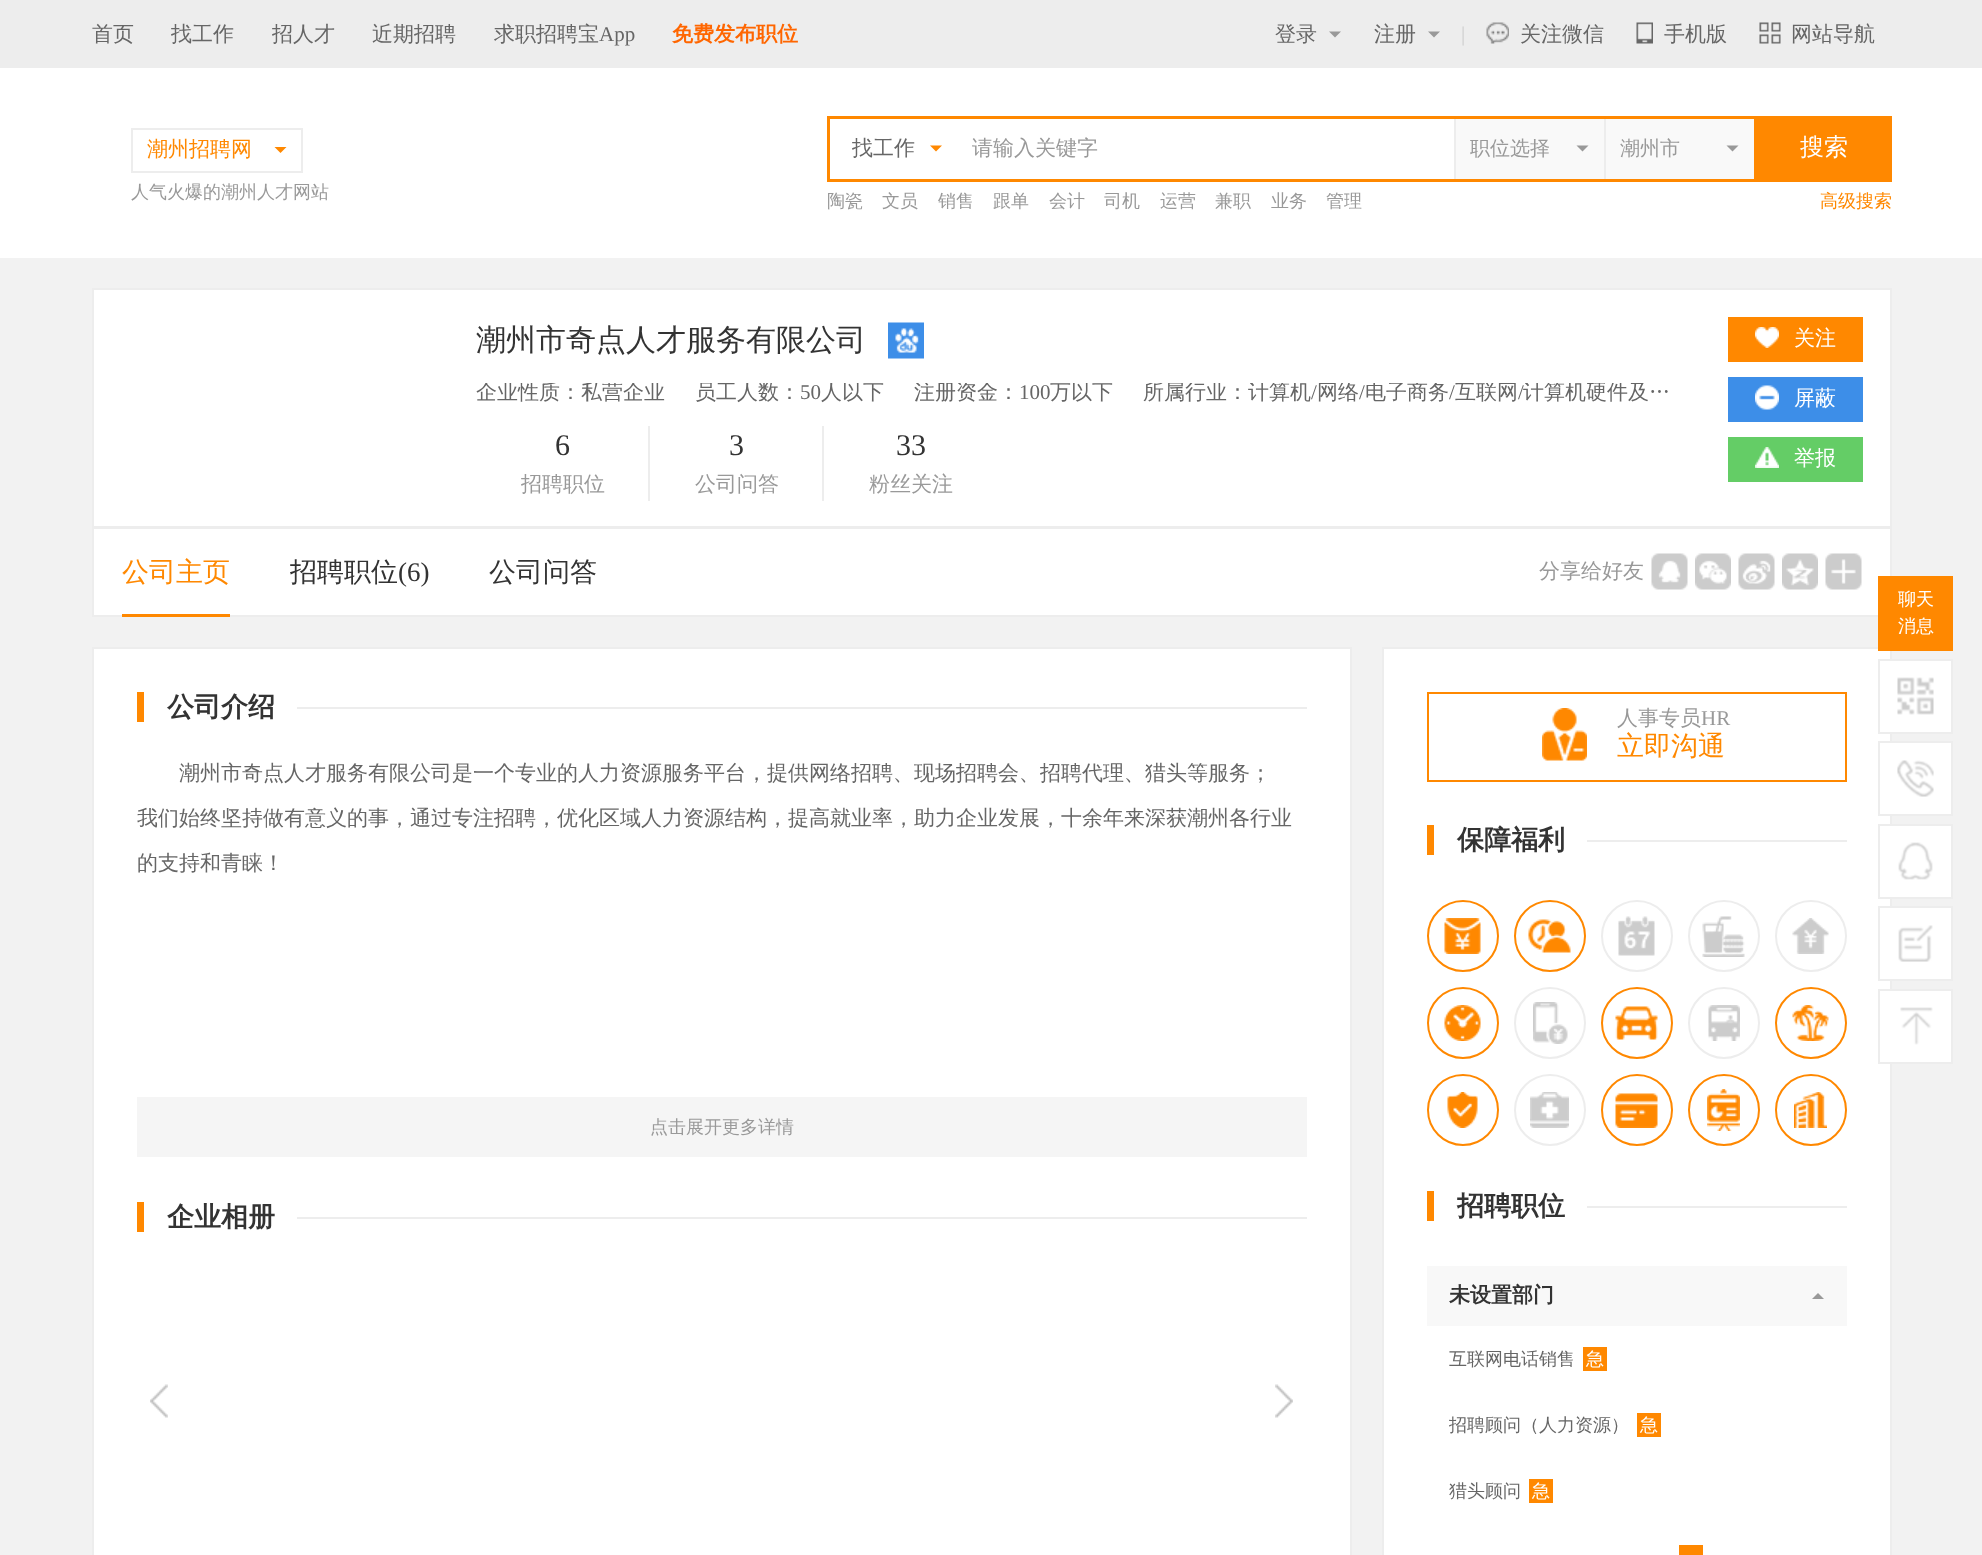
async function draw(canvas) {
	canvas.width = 1982;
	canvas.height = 1555;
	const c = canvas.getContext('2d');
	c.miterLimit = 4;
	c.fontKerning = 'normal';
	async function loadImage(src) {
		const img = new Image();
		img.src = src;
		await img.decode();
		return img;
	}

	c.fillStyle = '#f2f2f2';
	c.fillRect(0, 0, 1982, 1555);
	c.fillStyle = '#ededed';
	c.fillRect(0, 0, 1982, 68);
	c.font = '500 21px WenQuanYi Zen Hei';
	c.fillStyle = '#666';
	for (const [text, x, y] of [
		['首页', 92, 41],
		['找工作', 171, 41],
		['招人才', 272, 41],
		['近期招聘', 372, 41],
		['求职招聘宝', 494, 41],
	]) {
		c.fillText(text, x, y);
	}
	c.font = '21px Liberation Serif';
	c.fillText('App', 599, 41);
	c.font = 'bold 21px WenQuanYi Zen Hei';
	c.fillStyle = '#f60';
	c.fillText('免费发布职位', 672, 41);
	c.font = '500 21px WenQuanYi Zen Hei';
	c.fillStyle = '#666';
	c.fillText('登录', 1275, 41);
	c.fillStyle = '#999';
	c.beginPath();
	c.moveTo(1329, 31.5);
	c.lineTo(1341, 31.5);
	c.lineTo(1335, 37.5);
	c.closePath();
	c.fill();
	c.fillStyle = '#666';
	c.fillText('注册', 1374, 41);
	c.fillStyle = '#999';
	c.beginPath();
	c.moveTo(1428, 31.5);
	c.lineTo(1440, 31.5);
	c.lineTo(1434, 37.5);
	c.closePath();
	c.fill();
	c.font = '21px Liberation Serif';
	c.fillStyle = '#cdcdcd';
	c.fillText('|', 1461, 41);
	c.drawImage(await loadImage('img1.png'), 1486, 22, 23, 22);
	c.font = '500 21px WenQuanYi Zen Hei';
	c.fillStyle = '#666';
	c.fillText('关注微信', 1520, 41);
	c.drawImage(await loadImage('img2.png'), 1636, 22, 17, 22);
	c.fillText('手机版', 1664, 41);
	c.drawImage(await loadImage('img3.png'), 1759, 22, 22, 22);
	c.fillText('网站导航', 1791, 41);
	c.fillStyle = '#fff';
	c.fillRect(0, 68, 1982, 190);
	c.strokeStyle = '#ededed';
	c.lineWidth = 2;
	c.strokeRect(132, 129, 170, 43);
	c.fillStyle = '#f80';
	c.fillText('潮州招聘网', 147, 156);
	c.beginPath();
	c.moveTo(274.5, 147);
	c.lineTo(286.5, 147);
	c.lineTo(280.5, 153);
	c.closePath();
	c.fill();
	c.font = '500 18px WenQuanYi Zen Hei';
	c.fillStyle = '#999';
	c.fillText('人气火爆的潮州人才网站', 131, 198);
	c.strokeStyle = '#f80';
	c.lineWidth = 3;
	c.strokeRect(828.5, 117.5, 927, 63);
	c.font = '500 21px WenQuanYi Zen Hei';
	c.fillStyle = '#666';
	c.fillText('找工作', 852, 155);
	c.fillStyle = '#f80';
	c.beginPath();
	c.moveTo(930, 145.5);
	c.lineTo(942, 145.5);
	c.lineTo(936, 151.5);
	c.closePath();
	c.fill();
	c.fillStyle = '#999';
	c.fillText('请输入关键字', 972, 155);
	c.fillStyle = '#f9f9f9';
	c.fillRect(1456, 119, 148, 60);
	c.fillStyle = '#ededed';
	c.fillRect(1454, 119, 2, 60);
	c.font = '500 20px WenQuanYi Zen Hei';
	c.fillStyle = '#999';
	c.fillText('职位选择', 1470, 155);
	c.beginPath();
	c.moveTo(1576.5, 145.5);
	c.lineTo(1588.5, 145.5);
	c.lineTo(1582.5, 151.5);
	c.closePath();
	c.fill();
	c.fillStyle = '#f9f9f9';
	c.fillRect(1606, 119, 148, 60);
	c.fillStyle = '#ededed';
	c.fillRect(1604, 119, 2, 60);
	c.fillStyle = '#999';
	c.fillText('潮州市', 1620, 155);
	c.beginPath();
	c.moveTo(1726.5, 145.5);
	c.lineTo(1738.5, 145.5);
	c.lineTo(1732.5, 151.5);
	c.closePath();
	c.fill();
	c.fillStyle = '#f80';
	c.fillRect(1757, 116, 135, 66);
	c.font = '500 24px WenQuanYi Zen Hei';
	c.fillStyle = '#fff';
	c.fillText('搜索', 1800, 155);
	c.font = '500 18px WenQuanYi Zen Hei';
	c.fillStyle = '#999';
	for (const [text, x, y] of [
		['陶瓷', 827, 207],
		['文员', 882, 207],
		['销售', 938, 207],
		['跟单', 993, 207],
		['会计', 1049, 207],
		['司机', 1104, 207],
		['运营', 1160, 207],
		['兼职', 1215, 207],
		['业务', 1271, 207],
		['管理', 1326, 207],
	]) {
		c.fillText(text, x, y);
	}
	c.fillStyle = '#f80';
	c.fillText('高级搜索', 1820, 207);
	c.fillStyle = '#fff';
	c.beginPath();
	c.rect(93, 289, 1798, 238);
	c.fill();
	c.strokeStyle = '#ededed';
	c.lineWidth = 2;
	c.stroke();
	c.font = '500 30px WenQuanYi Zen Hei';
	c.fillStyle = '#333';
	c.fillText('潮州市奇点人才服务有限公司', 476, 350);
	c.drawImage(await loadImage('img4.png'), 888, 322, 36, 37);
	c.save();
	c.beginPath();
	c.rect(476, 383, 1215, 21);
	c.clip();
	c.font = '500 21px WenQuanYi Zen Hei';
	c.fillStyle = '#666';
	c.fillText('企业性质：私营企业', 476, 399);
	c.fillText('员工人数：', 695, 399);
	c.restore();
	c.font = '21px Liberation Serif';
	c.fillStyle = '#666';
	c.fillText('50', 800, 399);
	c.save();
	c.beginPath();
	c.rect(476, 383, 1215, 21);
	c.clip();
	c.font = '500 21px WenQuanYi Zen Hei';
	c.fillText('人以下', 821, 399);
	c.fillText('注册资金：', 914, 399);
	c.restore();
	c.fillText('100', 1019, 399);
	c.save();
	c.beginPath();
	c.rect(476, 383, 1215, 21);
	c.clip();
	c.font = '500 21px WenQuanYi Zen Hei';
	c.fillText('万以下', 1050, 399);
	c.fillText('所属行业：计算机', 1143, 399);
	c.restore();
	c.fillText('/', 1311, 399);
	c.save();
	c.beginPath();
	c.rect(476, 383, 1215, 21);
	c.clip();
	c.font = '500 21px WenQuanYi Zen Hei';
	c.fillText('网络', 1317, 399);
	c.restore();
	c.fillText('/', 1359, 399);
	c.save();
	c.beginPath();
	c.rect(476, 383, 1215, 21);
	c.clip();
	c.font = '500 21px WenQuanYi Zen Hei';
	c.fillText('电子商务', 1365, 399);
	c.restore();
	c.fillText('/', 1449, 399);
	c.save();
	c.beginPath();
	c.rect(476, 383, 1215, 21);
	c.clip();
	c.font = '500 21px WenQuanYi Zen Hei';
	c.fillText('互联网', 1455, 399);
	c.restore();
	c.fillText('/', 1518, 399);
	c.save();
	c.beginPath();
	c.rect(476, 383, 1215, 21);
	c.clip();
	c.font = '500 21px WenQuanYi Zen Hei';
	c.fillText('计算机硬件及…', 1523, 399);
	c.restore();
	c.font = '30px Liberation Serif';
	c.fillStyle = '#333';
	c.fillText('6', 555, 455);
	c.fillStyle = '#ededed';
	c.fillRect(648, 426, 2, 75);
	c.font = '500 21px WenQuanYi Zen Hei';
	c.fillStyle = '#999';
	c.fillText('招聘职位', 521, 491);
	c.font = '30px Liberation Serif';
	c.fillStyle = '#333';
	c.fillText('3', 729, 455);
	c.fillStyle = '#ededed';
	c.fillRect(822, 426, 2, 75);
	c.font = '500 21px WenQuanYi Zen Hei';
	c.fillStyle = '#999';
	c.fillText('公司问答', 695, 491);
	c.font = '30px Liberation Serif';
	c.fillStyle = '#333';
	c.fillText('33', 896, 455);
	c.font = '500 21px WenQuanYi Zen Hei';
	c.fillStyle = '#999';
	c.fillText('粉丝关注', 869, 491);
	c.fillStyle = '#f80';
	c.fillRect(1728, 317, 135, 45);
	c.drawImage(await loadImage('img5.png'), 1755, 327, 24, 21);
	c.fillStyle = '#fff';
	c.fillText('关注', 1794, 345);
	c.fillStyle = '#3d8ee8';
	c.fillRect(1728, 377, 135, 45);
	c.drawImage(await loadImage('img6.png'), 1755, 385, 24, 25);
	c.fillStyle = '#fff';
	c.fillText('屏蔽', 1794, 405);
	c.fillStyle = '#64cd66';
	c.fillRect(1728, 437, 135, 45);
	c.drawImage(await loadImage('img7.png'), 1755, 447, 24, 21);
	c.fillStyle = '#fff';
	c.fillText('举报', 1794, 465);
	c.beginPath();
	c.rect(93, 528, 1798, 88);
	c.fill();
	c.stroke();
	c.font = '500 27px WenQuanYi Zen Hei';
	c.fillStyle = '#f80';
	c.fillText('公司主页', 122, 581);
	c.fillRect(122, 614, 108, 3);
	c.fillStyle = '#333';
	c.fillText('招聘职位', 290, 581);
	c.font = '27px Liberation Serif';
	c.fillText('(6)', 398, 581);
	c.font = '500 27px WenQuanYi Zen Hei';
	c.fillText('公司问答', 489, 581);
	c.font = '500 21px WenQuanYi Zen Hei';
	c.fillStyle = '#999';
	c.fillText('分享给好友', 1539, 578);
	c.drawImage(await loadImage('img8.png'), 1651, 553, 37, 37);
	c.drawImage(await loadImage('img9.png'), 1695, 553, 36, 37);
	c.drawImage(await loadImage('img10.png'), 1738, 553, 37, 37);
	c.drawImage(await loadImage('img11.png'), 1782, 553, 36, 37);
	c.drawImage(await loadImage('img12.png'), 1825, 553, 37, 37);
	c.fillStyle = '#fff';
	c.beginPath();
	c.rect(93, 648, 1258, 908);
	c.fill();
	c.stroke();
	c.fillStyle = '#f80';
	c.fillRect(137, 692, 7, 30);
	c.font = 'bold 27px WenQuanYi Zen Hei';
	c.fillStyle = '#333';
	c.fillText('公司介绍', 167, 716);
	c.fillStyle = '#ededed';
	c.fillRect(297, 707, 1010, 2);
	c.font = '500 21px WenQuanYi Zen Hei';
	c.fillStyle = '#666';
	for (const [text, x, y] of [
		['潮州市奇点人才服务有限公司是一个专业的人力资源服务平台，提供网络招聘、现场招聘会、招聘代理、猎头等服务；', 179, 780],
		['我们始终坚持做有意义的事，通过专注招聘，优化区域人力资源结构，提高就业率，助力企业发展，十余年来深获潮州各行业', 137, 825],
		['的支持和青睐！', 137, 870],
	]) {
		c.fillText(text, x, y);
	}
	c.fillStyle = '#f5f5f5';
	c.fillRect(137, 1097, 1170, 60);
	c.font = '500 18px WenQuanYi Zen Hei';
	c.fillStyle = '#999';
	c.fillText('点击展开更多详情', 650, 1133);
	c.fillStyle = '#f80';
	c.fillRect(137, 1202, 7, 30);
	c.font = 'bold 27px WenQuanYi Zen Hei';
	c.fillStyle = '#333';
	c.fillText('企业相册', 167, 1226);
	c.fillStyle = '#ededed';
	c.fillRect(297, 1217, 1010, 2);
	c.drawImage(await loadImage('img13.png'), 150, 1384, 18, 34);
	c.drawImage(await loadImage('img14.png'), 1275, 1384, 18, 34);
	c.fillStyle = '#fff';
	c.beginPath();
	c.rect(1383, 648, 508, 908);
	c.fill();
	c.stroke();
	c.strokeStyle = '#f80';
	c.strokeRect(1428, 693, 418, 88);
	c.drawImage(await loadImage('img15.png'), 1542, 708, 45, 53);
	c.font = '500 21px WenQuanYi Zen Hei';
	c.fillStyle = '#999';
	c.fillText('人事专员', 1617, 725);
	c.font = '21px Liberation Serif';
	c.fillText('HR', 1701, 725);
	c.font = '500 27px WenQuanYi Zen Hei';
	c.fillStyle = '#f80';
	c.fillText('立即沟通', 1617, 755);
	c.fillRect(1427, 825, 7, 30);
	c.font = 'bold 27px WenQuanYi Zen Hei';
	c.fillStyle = '#333';
	c.fillText('保障福利', 1457, 849);
	c.fillStyle = '#ededed';
	c.fillRect(1587, 840, 260, 2);
	c.beginPath();
	c.arc(1463, 936, 35, 0, 2 * Math.PI);
	c.stroke();
	c.drawImage(await loadImage('img16.png'), 1444, 918, 37, 36);
	c.beginPath();
	c.arc(1550, 936, 35, 0, 2 * Math.PI);
	c.stroke();
	c.drawImage(await loadImage('img17.png'), 1528, 919, 43, 34);
	c.beginPath();
	c.arc(1637, 936, 35, 0, 2 * Math.PI);
	c.strokeStyle = '#ededed';
	c.stroke();
	c.drawImage(await loadImage('img18.png'), 1618, 916, 37, 40);
	c.beginPath();
	c.arc(1724, 936, 35, 0, 2 * Math.PI);
	c.stroke();
	c.drawImage(await loadImage('img19.png'), 1702, 916, 43, 41);
	c.beginPath();
	c.arc(1811, 936, 35, 0, 2 * Math.PI);
	c.stroke();
	c.drawImage(await loadImage('img20.png'), 1792, 918, 37, 36);
	c.beginPath();
	c.arc(1463, 1023, 35, 0, 2 * Math.PI);
	c.strokeStyle = '#f80';
	c.stroke();
	c.drawImage(await loadImage('img21.png'), 1444, 1005, 37, 36);
	c.beginPath();
	c.arc(1550, 1023, 35, 0, 2 * Math.PI);
	c.strokeStyle = '#ededed';
	c.stroke();
	c.drawImage(await loadImage('img22.png'), 1533, 1002, 35, 42);
	c.beginPath();
	c.arc(1637, 1023, 35, 0, 2 * Math.PI);
	c.strokeStyle = '#f80';
	c.stroke();
	c.drawImage(await loadImage('img23.png'), 1615, 1006, 43, 34);
	c.beginPath();
	c.arc(1724, 1023, 35, 0, 2 * Math.PI);
	c.strokeStyle = '#ededed';
	c.stroke();
	c.drawImage(await loadImage('img24.png'), 1708, 1005, 32, 36);
	c.beginPath();
	c.arc(1811, 1023, 35, 0, 2 * Math.PI);
	c.strokeStyle = '#f80';
	c.stroke();
	c.drawImage(await loadImage('img25.png'), 1792, 1005, 37, 36);
	c.beginPath();
	c.arc(1463, 1110, 35, 0, 2 * Math.PI);
	c.stroke();
	c.drawImage(await loadImage('img26.png'), 1447, 1092, 31, 36);
	c.beginPath();
	c.arc(1550, 1110, 35, 0, 2 * Math.PI);
	c.strokeStyle = '#ededed';
	c.stroke();
	c.drawImage(await loadImage('img27.png'), 1530, 1092, 39, 36);
	c.beginPath();
	c.arc(1637, 1110, 35, 0, 2 * Math.PI);
	c.strokeStyle = '#f80';
	c.stroke();
	c.drawImage(await loadImage('img28.png'), 1615, 1093, 43, 35);
	c.beginPath();
	c.arc(1724, 1110, 35, 0, 2 * Math.PI);
	c.stroke();
	c.drawImage(await loadImage('img29.png'), 1707, 1089, 33, 42);
	c.beginPath();
	c.arc(1811, 1110, 35, 0, 2 * Math.PI);
	c.stroke();
	c.drawImage(await loadImage('img30.png'), 1794, 1092, 33, 36);
	c.fillStyle = '#f80';
	c.fillRect(1427, 1191, 7, 30);
	c.fillStyle = '#333';
	c.fillText('招聘职位', 1457, 1215);
	c.fillStyle = '#ededed';
	c.fillRect(1587, 1206, 260, 2);
	c.fillStyle = '#f8f8f8';
	c.fillRect(1427, 1266, 420, 60);
	c.font = 'bold 21px WenQuanYi Zen Hei';
	c.fillStyle = '#333';
	c.fillText('未设置部门', 1449, 1302);
	c.fillStyle = '#999';
	c.beginPath();
	c.moveTo(1824, 1299);
	c.lineTo(1812, 1299);
	c.lineTo(1818, 1293);
	c.closePath();
	c.fill();
	c.font = '500 18px WenQuanYi Zen Hei';
	c.fillStyle = '#666';
	c.fillText('互联网电话销售', 1449, 1365);
	c.fillStyle = '#f80';
	c.fillRect(1583, 1347, 24, 24);
	c.fillStyle = '#fff';
	c.fillText('急', 1586, 1365);
	c.fillStyle = '#666';
	c.fillText('招聘顾问（人力资源）', 1449, 1431);
	c.fillStyle = '#f80';
	c.fillRect(1637, 1413, 24, 24);
	c.fillStyle = '#fff';
	c.fillText('急', 1640, 1431);
	c.fillStyle = '#666';
	c.fillText('猎头顾问', 1449, 1497);
	c.fillStyle = '#f80';
	c.fillRect(1529, 1479, 24, 24);
	c.fillStyle = '#fff';
	c.fillText('急', 1532, 1497);
	c.fillStyle = '#f80';
	c.fillRect(1679, 1545, 24, 10);
	c.strokeRect(1879, 577, 73, 73);
	c.fillRect(1880, 578, 71, 71);
	c.fillStyle = '#fff';
	c.fillText('聊天', 1898, 605);
	c.fillText('消息', 1898, 632);
	c.fillRect(1890, 661, 61, 71);
	c.strokeStyle = '#ededed';
	c.strokeRect(1879, 660, 73, 73);
	c.drawImage(await loadImage('img31.png'), 1897, 677, 37, 38);
	c.fillRect(1890, 743, 61, 71);
	c.strokeRect(1879, 742, 73, 73);
	c.drawImage(await loadImage('img32.png'), 1897, 760, 37, 37);
	c.fillRect(1890, 826, 61, 71);
	c.strokeRect(1879, 825, 73, 73);
	c.drawImage(await loadImage('img33.png'), 1898, 842, 35, 38);
	c.fillRect(1890, 908, 61, 71);
	c.strokeRect(1879, 907, 73, 73);
	c.drawImage(await loadImage('img34.png'), 1898, 925, 35, 37);
	c.fillRect(1890, 991, 61, 71);
	c.strokeRect(1879, 990, 73, 73);
	c.drawImage(await loadImage('img35.png'), 1900, 1007, 33, 38);
}

draw(document.querySelector('canvas'));
